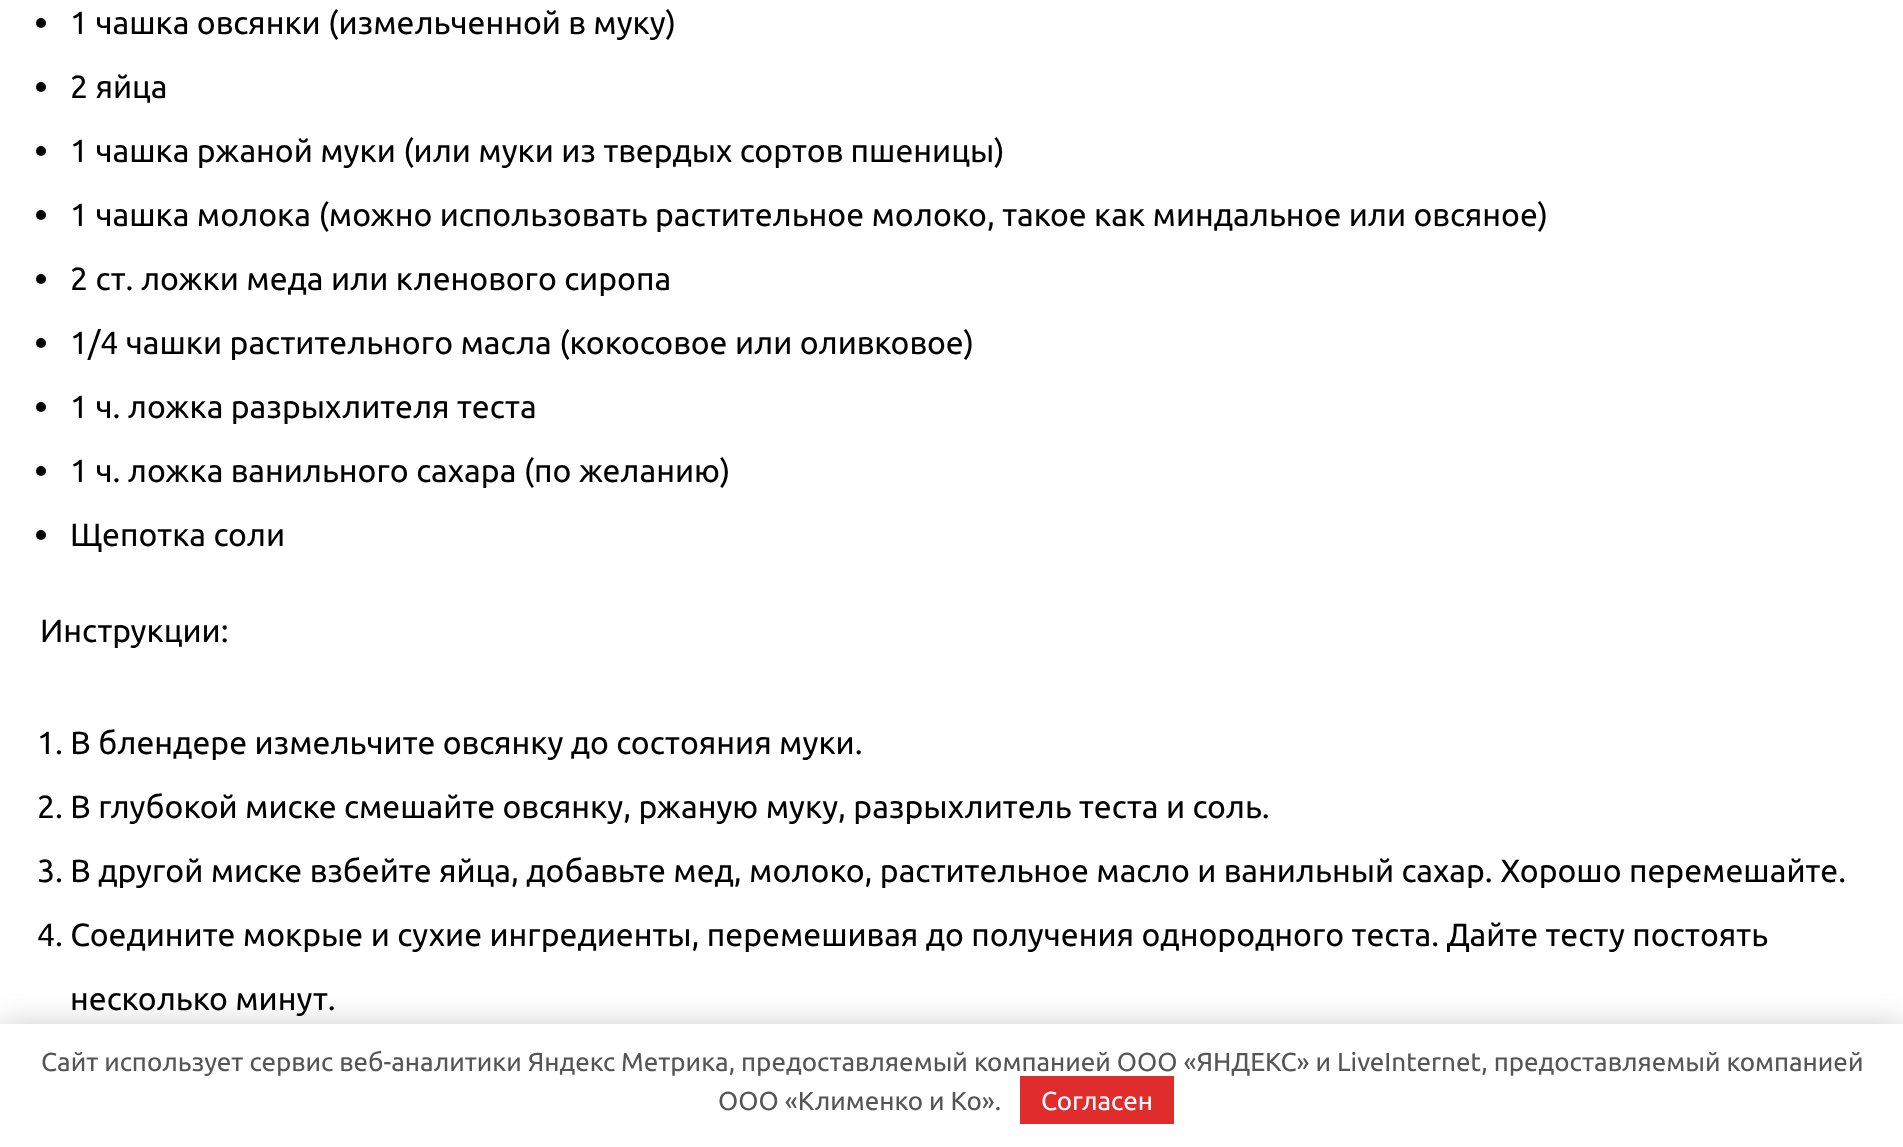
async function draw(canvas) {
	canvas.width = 1903;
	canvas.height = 1147;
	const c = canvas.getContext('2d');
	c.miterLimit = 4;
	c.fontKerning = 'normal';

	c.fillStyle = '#fff';
	c.fillRect(0, 0, 1903, 1147);
	c.fillStyle = '#000';
	c.beginPath();
	c.arc(41, 23, 5, 0, 2 * Math.PI);
	c.fill();
	c.font = '32px Ubuntu';
	c.fillText('1 чашка овсянки (измельченной в муку)', 70, 34);
	c.beginPath();
	c.arc(41, 87, 5, 0, 2 * Math.PI);
	c.fill();
	c.fillText('2 яйца', 70, 98);
	c.beginPath();
	c.arc(41, 151, 5, 0, 2 * Math.PI);
	c.fill();
	c.fillText('1 чашка ржаной муки (или муки из твердых сортов пшеницы)', 70, 162);
	c.beginPath();
	c.arc(41, 215, 5, 0, 2 * Math.PI);
	c.fill();
	c.fillText('1 чашка молока (можно использовать растительное молоко, такое как миндальное или овсяное)', 70, 226);
	c.beginPath();
	c.arc(41, 279, 5, 0, 2 * Math.PI);
	c.fill();
	c.fillText('2 ст. ложки меда или кленового сиропа', 70, 290);
	c.beginPath();
	c.arc(41, 343, 5, 0, 2 * Math.PI);
	c.fill();
	c.fillText('1/4 чашки растительного масла (кокосовое или оливковое)', 70, 354);
	c.beginPath();
	c.arc(41, 407, 5, 0, 2 * Math.PI);
	c.fill();
	c.fillText('1 ч. ложка разрыхлителя теста', 70, 418);
	c.beginPath();
	c.arc(41, 471, 5, 0, 2 * Math.PI);
	c.fill();
	c.fillText('1 ч. ложка ванильного сахара (по желанию)', 70, 482);
	c.beginPath();
	c.arc(41, 535, 5, 0, 2 * Math.PI);
	c.fill();
	for (const [text, x, y] of [
		['Щепотка соли', 70, 546],
		['Инструкции:', 40, 642],
		['1. В блендере измельчите овсянку до состояния муки.', 37, 754],
		['2. В глубокой миске смешайте овсянку, ржаную муку, разрыхлитель теста и соль.', 37, 818],
		['3. В другой миске взбейте яйца, добавьте мед, молоко, растительное масло и ванильный сахар. Хорошо перемешайте.', 37, 882],
		['4. Соедините мокрые и сухие ингредиенты, перемешивая до получения однородного теста. Дайте тесту постоять', 37, 946],
		['несколько минут.', 70, 1010],
	]) {
		c.fillText(text, x, y);
	}
	c.fillStyle = '#00000033';
	c.filter = 'blur(15px)';
	c.beginPath();
	c.rect(0, 1024, 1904, 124);
	c.fill();
	c.filter = 'none';
	c.fillStyle = '#fff';
	c.fillRect(0, 1024, 1903, 123);
	c.font = '26px Ubuntu';
	c.fillStyle = '#555';
	c.fillText('Сайт использует сервис веб-аналитики Яндекс Метрика, предоставляемый компанией ООО «ЯНДЕКС» и LiveInternet, предоставляемый компанией', 41, 1071);
	c.fillText('ООО «Клименко и Ко».', 718, 1110);
	c.fillStyle = '#e02c2c';
	c.fillRect(1020, 1076, 154, 48);
	c.fillStyle = '#fff';
	c.fillText('Согласен', 1041, 1110);
}

draw(document.querySelector('canvas'));
